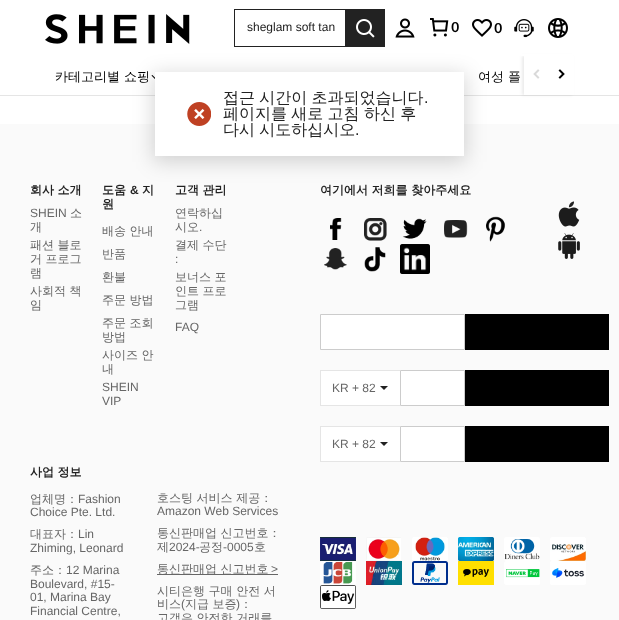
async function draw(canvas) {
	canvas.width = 619;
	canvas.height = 620;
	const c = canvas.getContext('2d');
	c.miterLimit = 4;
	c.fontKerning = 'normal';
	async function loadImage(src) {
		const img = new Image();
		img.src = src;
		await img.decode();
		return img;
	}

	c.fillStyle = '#fff';
	c.fillRect(0, 0, 619, 620);
	c.fillStyle = '#e5e5e5';
	c.fillRect(0, 95, 619, 1);
	c.fillStyle = '#00000014';
	c.filter = 'blur(1.5px)';
	c.beginPath();
	c.rect(522, 56, 50, 39);
	c.fill();
	c.filter = 'none';
	c.fillStyle = '#fff';
	c.fillRect(521, 54, 52, 2);
	c.drawImage(await loadImage('img1.png'), 45, 14, 145, 30);
	for (const [x, y, w, h, color] of [
		[234, 9, 111, 1, '#222'],
		[234, 46, 111, 1, '#222'],
		[234, 9, 1, 38, '#222'],
	]) {
		c.fillStyle = color;
		c.fillRect(x, y, w, h);
	}
	c.font = '12px Liberation Sans';
	c.fillText('sheglam soft tan', 247, 31);
	c.fillRect(345, 9, 40, 38);
	c.drawImage(await loadImage('img2.png'), 356, 19, 19, 19);
	c.drawImage(await loadImage('img3.png'), 395, 18, 20, 20);
	c.drawImage(await loadImage('img4.png'), 430, 18, 19, 19);
	c.font = 'bold 14px Muli';
	c.fillStyle = '#000';
	c.fillText('0', 451, 32);
	c.drawImage(await loadImage('img5.png'), 472, 19, 20, 18);
	c.fillText('0', 494, 33);
	c.drawImage(await loadImage('img6.png'), 514, 19, 20, 19);
	c.drawImage(await loadImage('img7.png'), 548, 18, 20, 20);
	c.font = '500 13px WenQuanYi Zen Hei';
	c.fillText('카테고리별 쇼핑', 55, 81);
	c.drawImage(await loadImage('img8.png'), 151, 75, 4, 4);
	c.fillText('여성 플', 478, 81);
	c.fillStyle = '#fff';
	c.fillRect(524, 56, 50, 39);
	c.drawImage(await loadImage('img9.png'), 533, 69, 7, 10);
	c.drawImage(await loadImage('img10.png'), 558, 69, 7, 10);
	c.fillStyle = '#fafafa';
	c.fillRect(0, 124, 619, 496);
	c.font = 'bold 12px WenQuanYi Zen Hei';
	c.fillStyle = '#222';
	c.fillText('회사 소개', 30, 194);
	c.font = '12px Liberation Sans';
	c.fillStyle = '#666';
	c.fillText('SHEIN', 30, 217);
	c.font = '500 12px WenQuanYi Zen Hei';
	for (const [text, x, y] of [
		['소', 70, 217],
		['개', 30, 231],
		['패션 블로', 30, 249],
		['거 프로그', 30, 263],
		['램', 30, 277],
		['사회적 책', 30, 295],
		['임', 30, 309],
	]) {
		c.fillText(text, x, y);
	}
	c.font = 'bold 12px WenQuanYi Zen Hei';
	c.fillStyle = '#222';
	c.fillText('도움', 102, 194);
	c.font = 'bold 12px Liberation Sans';
	c.fillText('&', 130, 194);
	c.font = 'bold 12px WenQuanYi Zen Hei';
	c.fillText('지', 142, 194);
	c.fillText('원', 102, 208);
	c.font = '500 12px WenQuanYi Zen Hei';
	c.fillStyle = '#666';
	for (const [text, x, y] of [
		['배송 안내', 102, 235],
		['반품', 102, 258],
		['환불', 102, 281],
		['주문 방법', 102, 304],
		['주문 조회', 102, 327],
		['방법', 102, 341],
		['사이즈 안', 102, 359],
		['내', 102, 373],
	]) {
		c.fillText(text, x, y);
	}
	c.font = '12px Liberation Sans';
	c.fillText('SHEIN', 102, 391);
	c.fillText('VIP', 102, 405);
	c.font = 'bold 12px WenQuanYi Zen Hei';
	c.fillStyle = '#222';
	c.fillText('고객 관리', 175, 194);
	c.font = '500 12px WenQuanYi Zen Hei';
	c.fillStyle = '#666';
	c.fillText('연락하십', 175, 217);
	c.fillText('시오', 175, 231);
	c.font = '12px Liberation Sans';
	c.fillText('.', 199, 231);
	c.font = '500 12px WenQuanYi Zen Hei';
	c.fillText('결제 수단', 175, 249);
	c.font = '12px Liberation Sans';
	c.fillText(':', 175, 263);
	c.font = '500 12px WenQuanYi Zen Hei';
	for (const [text, x, y] of [
		['보너스 포', 175, 281],
		['인트 프로', 175, 295],
		['그램', 175, 309],
	]) {
		c.fillText(text, x, y);
	}
	c.font = '12px Liberation Sans';
	c.fillText('FAQ', 175, 331);
	c.font = 'bold 12px WenQuanYi Zen Hei';
	c.fillStyle = '#222';
	c.fillText('사업 정보', 30, 476);
	c.font = '500 12px WenQuanYi Zen Hei';
	c.fillStyle = '#666';
	c.fillText('업체명：', 30, 503);
	c.font = '12px Liberation Sans';
	c.fillText('Fashion', 78, 503);
	c.fillText('Choice Pte. Ltd.', 30, 516);
	c.font = '500 12px WenQuanYi Zen Hei';
	c.fillText('대표자：', 30, 538);
	c.font = '12px Liberation Sans';
	c.fillText('Lin', 78, 538);
	c.fillText('Zhiming, Leonard', 30, 552);
	c.font = '500 12px WenQuanYi Zen Hei';
	c.fillText('주소：', 30, 574);
	c.font = '12px Liberation Sans';
	for (const [text, x, y] of [
		['12 Marina', 66, 574],
		['Boulevard, #15-', 30, 588],
		['01, Marina Bay', 30, 601],
		['Financial Centre,', 30, 615],
	]) {
		c.fillText(text, x, y);
	}
	c.font = '500 12px WenQuanYi Zen Hei';
	c.fillText('호스팅 서비스 제공：', 157, 502);
	c.font = '12px Liberation Sans';
	c.fillText('Amazon Web Services', 157, 515);
	c.font = '500 12px WenQuanYi Zen Hei';
	c.fillText('통신판매업 신고번호：', 157, 537);
	c.fillText('제', 157, 551);
	c.font = '12px Liberation Sans';
	c.fillText('2024-', 169, 551);
	c.font = '500 12px WenQuanYi Zen Hei';
	c.fillText('공정', 199, 551);
	c.font = '12px Liberation Sans';
	c.fillText('-0005', 223, 551);
	c.font = '500 12px WenQuanYi Zen Hei';
	c.fillText('호', 254, 551);
	c.fillRect(157, 574, 121, 1);
	c.fillText('통신판매업 신고번호', 157, 573);
	c.font = '12px Liberation Sans';
	c.fillText('>', 271, 573);
	c.font = '500 12px WenQuanYi Zen Hei';
	c.fillText('시티은행 구매 안전 서', 157, 595);
	c.fillText('비스', 157, 608);
	c.font = '12px Liberation Sans';
	c.fillText('(', 181, 608);
	c.font = '500 12px WenQuanYi Zen Hei';
	c.fillText('지급 보증', 185, 608);
	c.font = '12px Liberation Sans';
	c.fillText(')', 236, 608);
	c.font = '500 12px WenQuanYi Zen Hei';
	c.fillText('：', 240, 608);
	c.fillText('고객은 안전한 거래를', 157, 622);
	c.font = 'bold 12px WenQuanYi Zen Hei';
	c.fillStyle = '#222';
	c.fillText('여기에서 저희를 찾아주세요', 320, 194);
	c.drawImage(await loadImage('img11.png'), 330, 218, 12, 22);
	c.drawImage(await loadImage('img12.png'), 364, 218, 23, 23);
	c.drawImage(await loadImage('img13.png'), 402, 218, 25, 21);
	c.drawImage(await loadImage('img14.png'), 444, 220, 24, 18);
	c.drawImage(await loadImage('img15.png'), 486, 216, 20, 26);
	c.drawImage(await loadImage('img16.png'), 324, 248, 23, 22);
	c.drawImage(await loadImage('img17.png'), 364, 247, 22, 25);
	c.drawImage(await loadImage('img18.png'), 400, 244, 30, 30);
	c.drawImage(await loadImage('img19.png'), 558, 201, 22, 26);
	c.drawImage(await loadImage('img20.png'), 558, 233, 22, 26);
	c.fillStyle = '#fff';
	c.beginPath();
	c.rect(320.5, 314.5, 144, 35);
	c.fill();
	c.strokeStyle = '#ccc';
	c.stroke();
	for (const [x, y, w, h, color] of [
		[465, 314, 144, 36, '#000'],
		[321, 371, 79, 34, '#fff'],
		[320, 370, 80, 1, '#e5e5e5'],
		[320, 405, 80, 1, '#e5e5e5'],
		[320, 370, 1, 36, '#e5e5e5'],
	]) {
		c.fillStyle = color;
		c.fillRect(x, y, w, h);
	}
	c.font = '12px Liberation Sans';
	c.fillStyle = '#666';
	c.fillText('KR + 82', 332, 392);
	c.fillStyle = '#222';
	c.beginPath();
	c.moveTo(380, 386);
	c.lineTo(388, 386);
	c.lineTo(384, 390);
	c.closePath();
	c.fill();
	c.fillStyle = '#fff';
	c.beginPath();
	c.rect(400.5, 370.5, 64, 35);
	c.fill();
	c.stroke();
	for (const [x, y, w, h, color] of [
		[465, 370, 144, 36, '#000'],
		[321, 427, 79, 34, '#fff'],
		[320, 426, 80, 1, '#e5e5e5'],
		[320, 461, 80, 1, '#e5e5e5'],
		[320, 426, 1, 36, '#e5e5e5'],
	]) {
		c.fillStyle = color;
		c.fillRect(x, y, w, h);
	}
	c.fillStyle = '#666';
	c.fillText('KR + 82', 332, 448);
	c.fillStyle = '#222';
	c.beginPath();
	c.moveTo(380, 442);
	c.lineTo(388, 442);
	c.lineTo(384, 446);
	c.closePath();
	c.fill();
	c.fillStyle = '#fff';
	c.beginPath();
	c.rect(400.5, 426.5, 64, 35);
	c.fill();
	c.stroke();
	c.fillStyle = '#000';
	c.fillRect(465, 426, 144, 36);
	c.drawImage(await loadImage('img21.png'), 320, 537, 36, 24);
	c.drawImage(await loadImage('img22.png'), 366, 537, 35, 24);
	c.drawImage(await loadImage('img23.png'), 412, 537, 36, 24);
	c.drawImage(await loadImage('img24.png'), 458, 537, 36, 24);
	c.drawImage(await loadImage('img25.png'), 504, 537, 36, 24);
	c.drawImage(await loadImage('img26.png'), 550, 537, 36, 24);
	c.drawImage(await loadImage('img27.png'), 320, 561, 36, 24);
	c.drawImage(await loadImage('img28.png'), 366, 561, 36, 24);
	c.drawImage(await loadImage('img29.png'), 412, 561, 36, 24);
	c.drawImage(await loadImage('img30.png'), 458, 561, 36, 24);
	c.drawImage(await loadImage('img31.png'), 504, 561, 36, 24);
	c.drawImage(await loadImage('img32.png'), 550, 561, 36, 24);
	c.drawImage(await loadImage('img33.png'), 320, 585, 36, 24);
	c.fillStyle = '#00000029';
	c.filter = 'blur(10px)';
	c.beginPath();
	c.rect(153, 74, 313, 88);
	c.fill();
	c.filter = 'none';
	c.fillStyle = '#fff';
	c.fillRect(155, 72, 309, 84);
	c.drawImage(await loadImage('img34.png'), 187, 102, 24, 24);
	c.wordSpacing = '-0.5px';
	c.font = '500 16px WenQuanYi Zen Hei';
	c.fillStyle = '#222';
	c.fillText('접근 시간이 초과되었습니다', 223, 103);
	c.wordSpacing = '0px';
	c.font = '16px Liberation Sans';
	c.fillText('.', 424, 103);
	c.wordSpacing = '-0.5px';
	c.font = '500 16px WenQuanYi Zen Hei';
	c.fillText('페이지를 새로 고침 하신 후', 223, 119);
	c.fillText('다시 시도하십시오', 223, 135);
	c.wordSpacing = '0px';
	c.font = '16px Liberation Sans';
	c.fillText('.', 355, 135);
}

draw(document.querySelector('canvas'));
